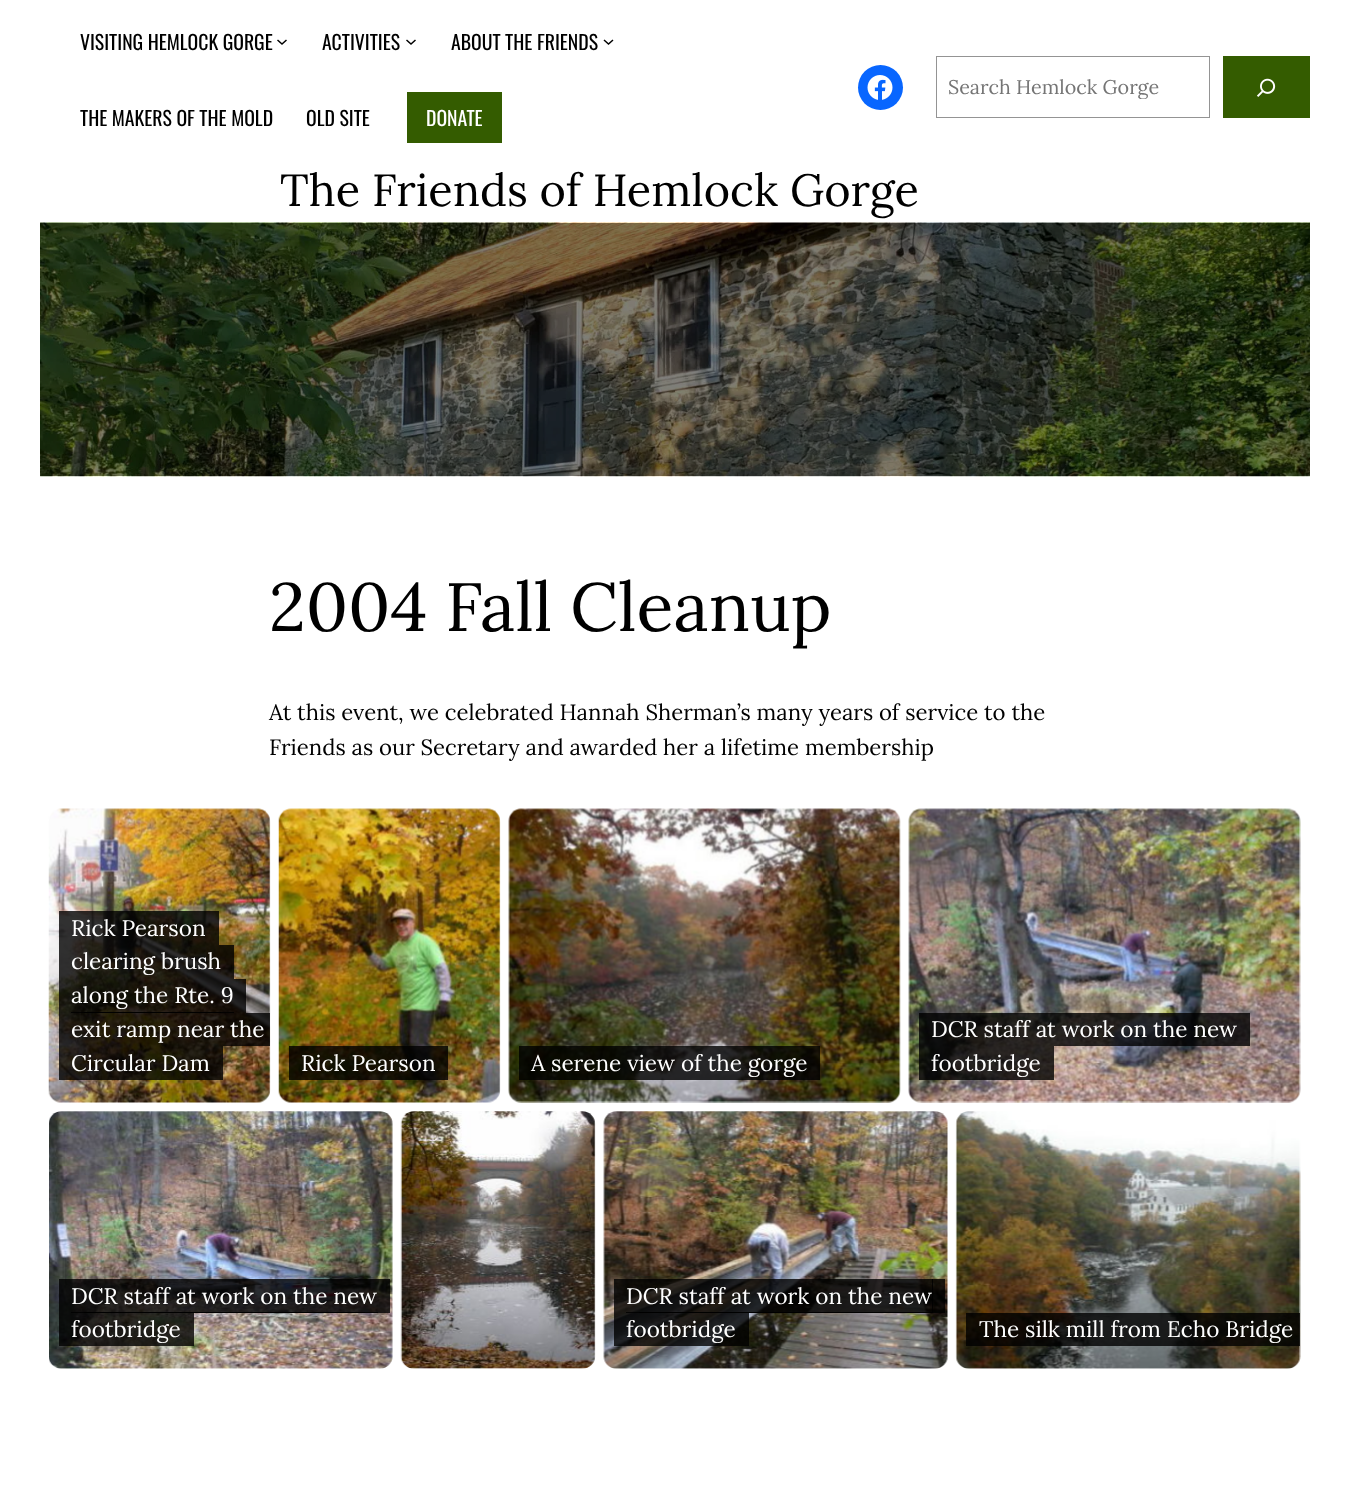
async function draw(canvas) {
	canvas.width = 1350;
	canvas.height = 1492;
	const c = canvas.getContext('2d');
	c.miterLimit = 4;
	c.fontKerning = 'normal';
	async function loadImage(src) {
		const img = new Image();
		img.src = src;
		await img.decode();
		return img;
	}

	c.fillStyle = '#fff';
	c.fillRect(0, 0, 1350, 1492);
	c.font = '19.75px Oswald';
	c.fillStyle = '#000';
	c.fillText('VISITING HEMLOCK GORGE', 80, 50);
	c.beginPath();
	c.moveTo(277.5, 40);
	c.lineTo(282, 44);
	c.lineTo(286.5, 40);
	c.strokeStyle = '#000';
	c.lineWidth = 1.5;
	c.stroke();
	c.fillText('ACTIVITIES', 322, 50);
	c.beginPath();
	c.moveTo(406.5, 40);
	c.lineTo(411, 44);
	c.lineTo(415.5, 40);
	c.stroke();
	c.fillText('ABOUT THE FRIENDS', 451, 50);
	c.beginPath();
	c.moveTo(604, 40);
	c.lineTo(608.5, 44);
	c.lineTo(613, 40);
	c.stroke();
	c.fillText('THE MAKERS OF THE MOLD', 80, 126);
	c.fillText('OLD SITE', 306, 126);
	c.fillStyle = '#345c00';
	c.fillRect(407, 92, 95, 51);
	c.fillStyle = '#fff';
	c.fillText('DONATE', 426, 126);
	c.fillStyle = '#0866ff';
	c.beginPath();
	c.arc(880.5, 87.5, 22.5, 0, 2 * Math.PI);
	c.fill();
	c.drawImage(await loadImage('img1.png'), 867, 75, 26, 25);
	c.strokeStyle = '#949494';
	c.lineWidth = 1;
	c.strokeRect(936.5, 56.5, 273, 61);
	c.save();
	c.beginPath();
	c.rect(948, 74, 232, 25);
	c.clip();
	c.font = '19.75px Lora';
	c.fillStyle = '#757575';
	c.fillText('Search Hemlock Gorge', 948, 94);
	c.restore();
	c.fillStyle = '#345c00';
	c.fillRect(1223, 56, 87, 62);
	c.drawImage(await loadImage('img2.png'), 1257, 78, 19, 19);
	c.font = '45px Lora';
	c.fillStyle = '#000';
	c.fillText('The Friends of Hemlock Gorge', 280, 206);
	c.drawImage(await loadImage('img3.png'), 40, 222, 1270, 255);
	c.font = '68.25px Lora';
	c.fillText('2004 Fall Cleanup', 269, 631);
	c.font = '22.15px Lora';
	c.fillText('At this event, we celebrated Hannah Sherman’s many years of service to the', 269, 720);
	c.fillText('Friends as our Secretary and awarded her a lifetime membership', 269, 755);
	c.drawImage(await loadImage('img4.png'), 48, 808, 223, 295);
	c.fillStyle = '#000000cc';
	c.fillRect(71, 911, 135, 34);
	c.font = '22.5px Lora';
	c.fillStyle = '#fff';
	c.fillText('Rick Pearson', 71, 936);
	c.fillStyle = '#000000cc';
	c.beginPath();
	c.moveTo(59, 911);
	c.lineTo(194, 911);
	c.lineTo(71, 911);
	c.lineTo(71, 945);
	c.lineTo(59, 945);
	c.closePath();
	c.fill();
	c.beginPath();
	c.moveTo(84, 911);
	c.lineTo(219, 911);
	c.lineTo(219, 945);
	c.lineTo(206, 945);
	c.lineTo(206, 911);
	c.closePath();
	c.fill();
	c.fillRect(71, 945, 150, 34);
	c.fillStyle = '#fff';
	c.fillText('clearing brush', 71, 969);
	c.fillStyle = '#000000cc';
	c.beginPath();
	c.moveTo(59, 945);
	c.lineTo(71, 945);
	c.lineTo(71, 979);
	c.lineTo(209, 979);
	c.lineTo(59, 979);
	c.closePath();
	c.fill();
	c.beginPath();
	c.moveTo(84, 979);
	c.lineTo(234, 979);
	c.lineTo(234, 945);
	c.lineTo(221, 945);
	c.lineTo(221, 979);
	c.closePath();
	c.fill();
	c.beginPath();
	c.moveTo(59, 979);
	c.lineTo(59, 1013);
	c.lineTo(221, 1013);
	c.lineTo(221, 1012);
	c.lineTo(71, 1012);
	c.lineTo(71, 979);
	c.closePath();
	c.fill();
	c.beginPath();
	c.moveTo(84, 1012);
	c.lineTo(84, 1013);
	c.lineTo(246, 1013);
	c.lineTo(246, 979);
	c.lineTo(234, 979);
	c.lineTo(234, 1012);
	c.closePath();
	c.fill();
	c.fillRect(71, 979, 163, 34);
	c.fillStyle = '#fff';
	c.fillText('along the Rte. 9', 71, 1003);
	c.fillStyle = '#000000cc';
	c.fillRect(71, 1013, 194, 33);
	c.fillStyle = '#fff';
	c.fillText('exit ramp near the', 71, 1037);
	for (const [x, y, w, h, color] of [
		[59, 1013, 12, 33, '#000000cc'],
		[265, 1013, 5, 33, '#000000cc'],
		[71, 1046, 139, 34, '#000000cc'],
	]) {
		c.fillStyle = color;
		c.fillRect(x, y, w, h);
	}
	c.fillStyle = '#fff';
	c.fillText('Circular Dam', 71, 1071);
	c.fillStyle = '#000000cc';
	c.beginPath();
	c.moveTo(59, 1046);
	c.lineTo(198, 1046);
	c.lineTo(71, 1046);
	c.lineTo(71, 1080);
	c.lineTo(59, 1080);
	c.closePath();
	c.fill();
	c.beginPath();
	c.moveTo(84, 1046);
	c.lineTo(223, 1046);
	c.lineTo(223, 1080);
	c.lineTo(210, 1080);
	c.lineTo(210, 1046);
	c.closePath();
	c.fill();
	c.drawImage(await loadImage('img5.png'), 278, 808, 223, 295);
	c.fillRect(301, 1046, 134, 34);
	c.fillStyle = '#fff';
	c.fillText('Rick Pearson', 301, 1071);
	c.fillStyle = '#000000cc';
	c.beginPath();
	c.moveTo(289, 1046);
	c.lineTo(423, 1046);
	c.lineTo(301, 1046);
	c.lineTo(301, 1080);
	c.lineTo(289, 1080);
	c.closePath();
	c.fill();
	c.beginPath();
	c.moveTo(314, 1046);
	c.lineTo(448, 1046);
	c.lineTo(448, 1080);
	c.lineTo(435, 1080);
	c.lineTo(435, 1046);
	c.closePath();
	c.fill();
	c.drawImage(await loadImage('img6.png'), 508, 808, 393, 295);
	c.beginPath();
	c.moveTo(519, 1046);
	c.lineTo(795, 1046);
	c.lineTo(531, 1046);
	c.lineTo(531, 1080);
	c.lineTo(519, 1080);
	c.closePath();
	c.fill();
	c.fillRect(531, 1046, 277, 34);
	c.fillStyle = '#fff';
	c.fillText('A serene view of the gorge', 531, 1071);
	c.fillStyle = '#000000cc';
	c.beginPath();
	c.moveTo(544, 1046);
	c.lineTo(820, 1046);
	c.lineTo(820, 1080);
	c.lineTo(808, 1080);
	c.lineTo(808, 1046);
	c.closePath();
	c.fill();
	c.drawImage(await loadImage('img7.png'), 908, 808, 393, 295);
	c.fillRect(931, 1013, 307, 33);
	c.fillStyle = '#fff';
	c.fillText('DCR staff at work on the new', 931, 1037);
	for (const [x, y, w, h, color] of [
		[919, 1013, 12, 33, '#000000cc'],
		[1238, 1013, 12, 33, '#000000cc'],
		[931, 1046, 110, 34, '#000000cc'],
	]) {
		c.fillStyle = color;
		c.fillRect(x, y, w, h);
	}
	c.fillStyle = '#fff';
	c.fillText('footbridge', 931, 1071);
	c.fillStyle = '#000000cc';
	c.beginPath();
	c.moveTo(919, 1046);
	c.lineTo(1029, 1046);
	c.lineTo(931, 1046);
	c.lineTo(931, 1080);
	c.lineTo(919, 1080);
	c.closePath();
	c.fill();
	c.beginPath();
	c.moveTo(944, 1046);
	c.lineTo(1054, 1046);
	c.lineTo(1054, 1080);
	c.lineTo(1041, 1080);
	c.lineTo(1041, 1046);
	c.closePath();
	c.fill();
	c.drawImage(await loadImage('img8.png'), 49, 1111, 344, 258);
	c.beginPath();
	c.moveTo(59, 1279);
	c.lineTo(59, 1313);
	c.lineTo(365, 1313);
	c.lineTo(365, 1312);
	c.lineTo(71, 1312);
	c.lineTo(71, 1279);
	c.closePath();
	c.fill();
	c.beginPath();
	c.moveTo(84, 1312);
	c.lineTo(84, 1313);
	c.lineTo(390, 1313);
	c.lineTo(390, 1279);
	c.lineTo(378, 1279);
	c.lineTo(378, 1312);
	c.closePath();
	c.fill();
	c.fillRect(71, 1279, 307, 34);
	c.fillStyle = '#fff';
	c.fillText('DCR staff at work on the new', 71, 1304);
	c.fillStyle = '#000000cc';
	c.fillRect(71, 1313, 110, 33);
	c.fillStyle = '#fff';
	c.fillText('footbridge', 71, 1337);
	c.fillStyle = '#000000cc';
	c.fillRect(59, 1313, 12, 33);
	c.fillRect(181, 1313, 13, 33);
	c.drawImage(await loadImage('img9.png'), 400, 1111, 196, 258);
	c.drawImage(await loadImage('img10.png'), 603, 1111, 345, 258);
	c.beginPath();
	c.moveTo(614, 1279);
	c.lineTo(614, 1313);
	c.lineTo(920, 1313);
	c.lineTo(920, 1312);
	c.lineTo(626, 1312);
	c.lineTo(626, 1279);
	c.closePath();
	c.fill();
	c.beginPath();
	c.moveTo(639, 1312);
	c.lineTo(639, 1313);
	c.lineTo(945, 1313);
	c.lineTo(945, 1279);
	c.lineTo(932, 1279);
	c.lineTo(932, 1312);
	c.closePath();
	c.fill();
	c.fillRect(626, 1279, 307, 34);
	c.fillStyle = '#fff';
	c.fillText('DCR staff at work on the new', 626, 1304);
	c.fillStyle = '#000000cc';
	c.fillRect(626, 1313, 110, 33);
	c.fillStyle = '#fff';
	c.fillText('footbridge', 626, 1337);
	c.fillStyle = '#000000cc';
	c.fillRect(614, 1313, 12, 33);
	c.fillRect(736, 1313, 13, 33);
	c.drawImage(await loadImage('img11.png'), 955, 1111, 346, 258);
	c.fillRect(979, 1313, 314, 33);
	c.fillStyle = '#fff';
	c.fillText('The silk mill from Echo Bridge', 979, 1337);
	c.fillStyle = '#000000cc';
	c.fillRect(966, 1313, 13, 33);
	c.fillRect(1293, 1313, 7, 33);
}

draw(document.querySelector('canvas'));
